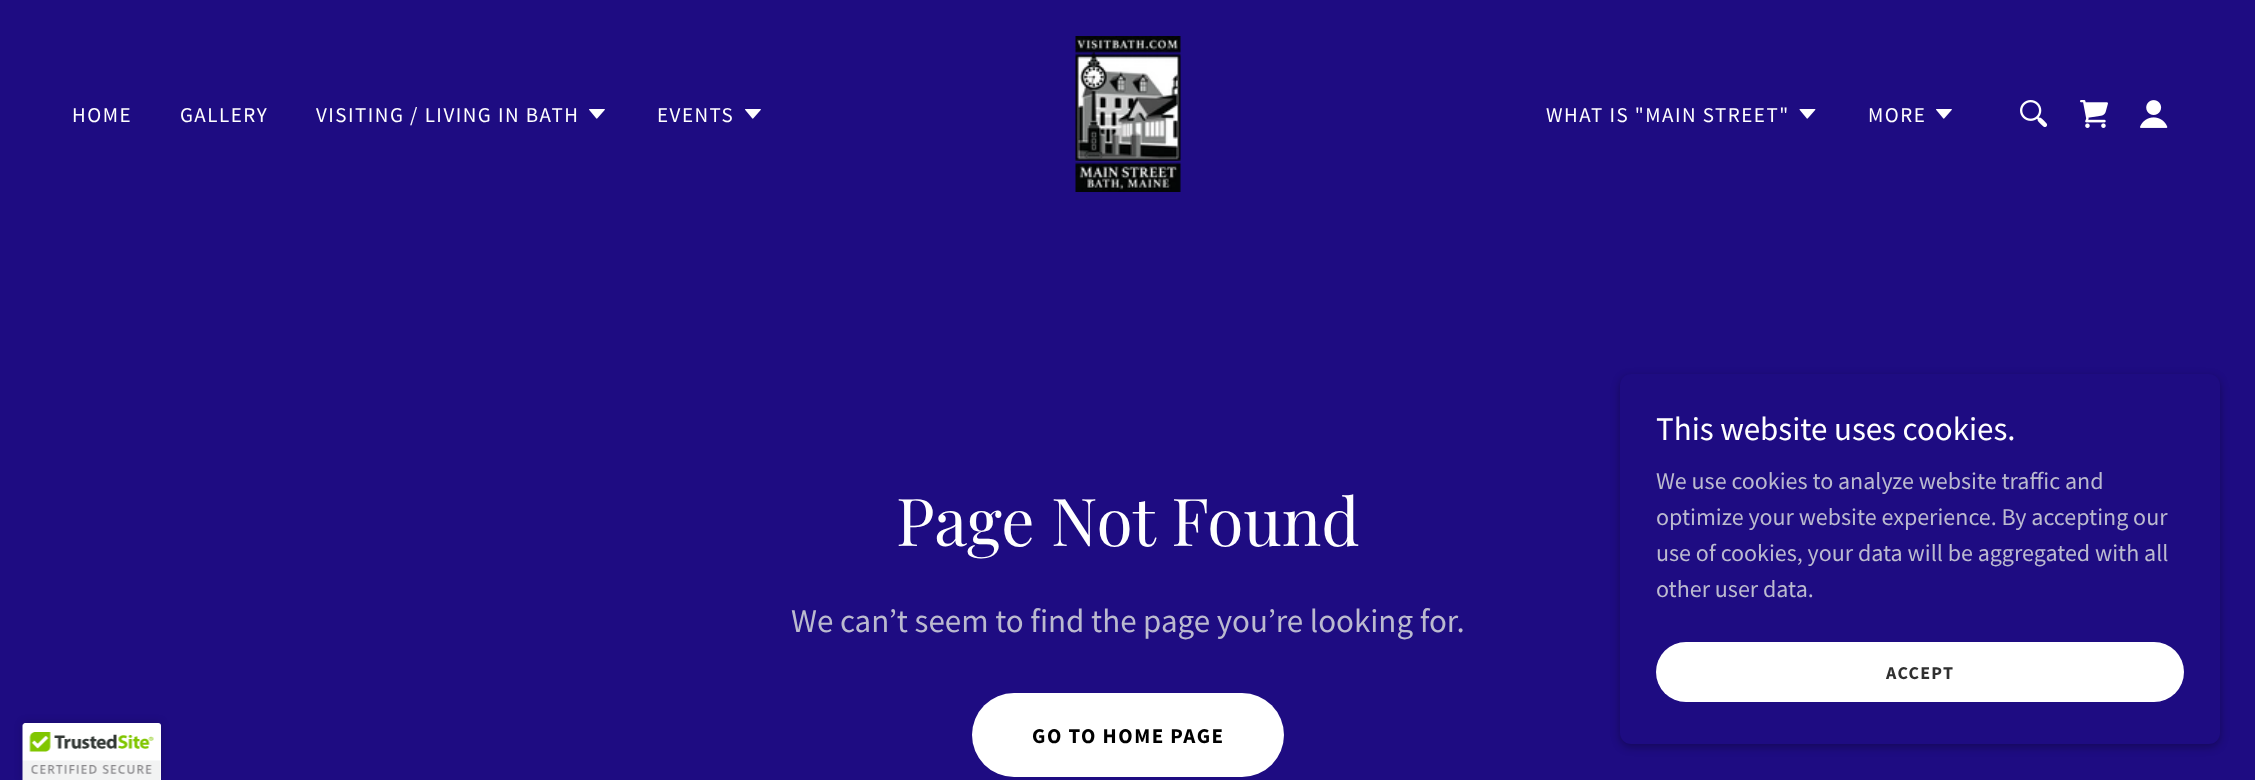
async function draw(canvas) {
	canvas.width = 2255;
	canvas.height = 780;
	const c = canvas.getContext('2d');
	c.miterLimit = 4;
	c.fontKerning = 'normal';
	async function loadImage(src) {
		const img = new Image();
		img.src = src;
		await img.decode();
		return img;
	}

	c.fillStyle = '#1e0c82';
	c.fillRect(0, 0, 2255, 780);
	c.letterSpacing = '1.5px';
	c.font = '21px Source Sans Pro';
	c.fillStyle = '#fff';
	for (const [text, x, y] of [
		['HOME', 72, 122],
		['GALLERY', 180, 122],
		['VISITING / LIVING IN BATH', 316, 122],
	]) {
		c.fillText(text, x, y);
	}
	c.drawImage(await loadImage('img1.png'), 589, 109, 16, 10);
	c.fillText('EVENTS', 657, 122);
	c.drawImage(await loadImage('img1.png'), 745, 109, 16, 10);
	c.drawImage(await loadImage('img2.png'), 1075, 36, 106, 156);
	c.fillText('WHAT IS "MAIN STREET"', 1546, 122);
	c.drawImage(await loadImage('img3.png'), 1799, 109, 17, 10);
	c.fillText('MORE', 1868, 122);
	c.drawImage(await loadImage('img1.png'), 1936, 109, 16, 10);
	c.drawImage(await loadImage('img4.png'), 2020, 100, 28, 28);
	c.drawImage(await loadImage('img5.png'), 2080, 100, 28, 28);
	c.drawImage(await loadImage('img6.png'), 2140, 100, 28, 28);
	c.letterSpacing = '0px';
	c.font = '66px Playfair Display';
	c.fillText('Page Not Found', 896, 546);
	c.font = '33px Source Sans Pro';
	c.fillStyle = '#bbbacf';
	c.fillText('We can’t seem to find the page you’re looking for.', 791, 632);
	c.fillStyle = '#fff';
	c.beginPath();
	c.roundRect(972, 693, 312, 84, 42);
	c.fill();
	c.letterSpacing = '1.5px';
	c.font = 'bold 21px Source Sans Pro';
	c.fillStyle = '#000';
	c.fillText('GO TO HOME PAGE', 1032, 743);
	c.fillStyle = '#0000004d';
	c.filter = 'blur(4.5px)';
	c.beginPath();
	c.roundRect(1620, 377, 600, 370, 11);
	c.fill();
	c.filter = 'none';
	c.fillStyle = '#1e0c82';
	c.beginPath();
	c.roundRect(1620, 374, 600, 370, 11);
	c.fill();
	c.letterSpacing = '0px';
	c.font = '33px Source Sans Pro';
	c.fillStyle = '#fff';
	c.fillText('This website uses cookies.', 1656, 440);
	c.font = '24px Source Sans Pro';
	c.fillStyle = '#bbbacf';
	for (const [text, x, y] of [
		['We use cookies to analyze website traffic and', 1656, 489],
		['optimize your website experience. By accepting our', 1656, 525],
		['use of cookies, your data will be aggregated with all', 1656, 561],
		['other user data.', 1656, 597],
	]) {
		c.fillText(text, x, y);
	}
	c.fillStyle = '#fff';
	c.beginPath();
	c.roundRect(1656, 642, 528, 60, 30);
	c.fill();
	c.letterSpacing = '1.25px';
	c.font = 'bold 18px Source Sans Pro';
	c.fillStyle = '#303030';
	c.fillText('ACCEPT', 1886, 679);
	c.fillStyle = '#00000033';
	c.filter = 'blur(4px)';
	c.beginPath();
	c.roundRect(23, 723, 138, 57, 3);
	c.fill();
	c.filter = 'none';
	c.fillStyle = '#fff';
	c.beginPath();
	c.roundRect(23, 723, 138, 57, [3, 3, 0, 0]);
	c.fill();
	c.drawImage(await loadImage('img7.png'), 22, 723, 139, 57);
}

draw(document.querySelector('canvas'));
